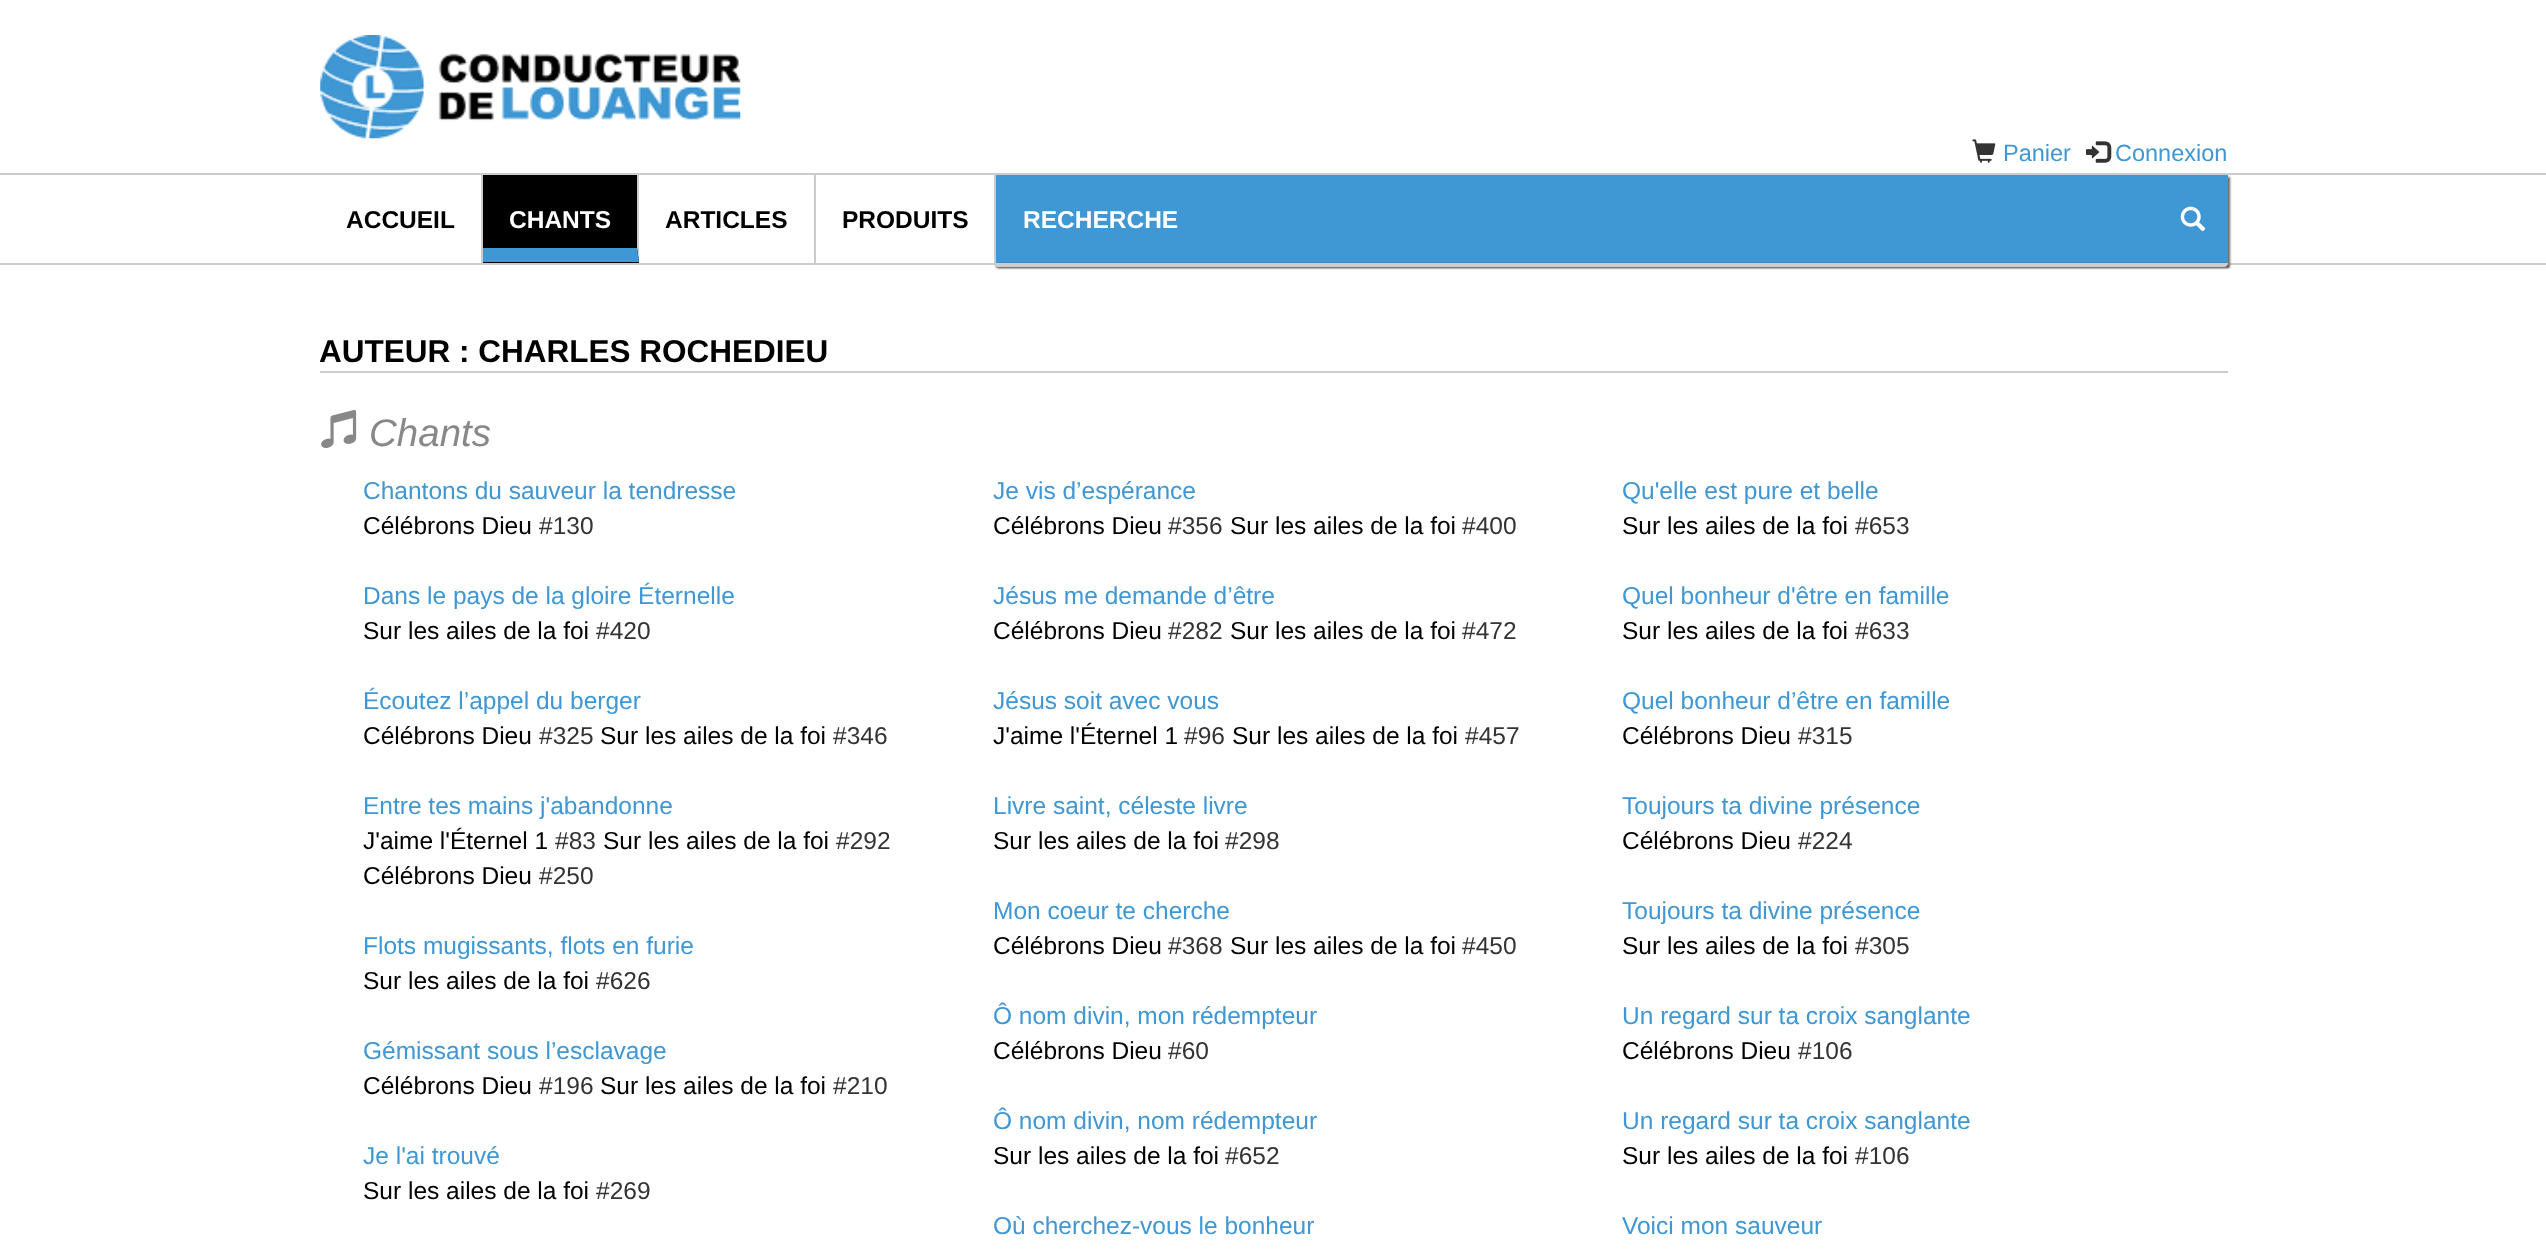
async function draw(canvas) {
	canvas.width = 2546;
	canvas.height = 1252;
	const c = canvas.getContext('2d');
	c.miterLimit = 4;
	c.fontKerning = 'normal';
	async function loadImage(src) {
		const img = new Image();
		img.src = src;
		await img.decode();
		return img;
	}

	c.fillStyle = '#fff';
	c.fillRect(0, 0, 2546, 1252);
	c.drawImage(await loadImage('img1.png'), 320, 35, 421, 104);
	c.drawImage(await loadImage('img2.png'), 1972, 139, 24, 24);
	c.font = '23.5px Liberation Sans';
	c.fillStyle = '#3f97d3';
	c.fillText('Panier', 2003, 161);
	c.drawImage(await loadImage('img3.png'), 2086, 141, 26, 22);
	c.fillText('Connexion', 2115, 161);
	for (const [x, y, w, h, color] of [
		[0, 173, 2546, 2, '#ccc'],
		[0, 263, 2546, 2, '#ccc'],
		[481, 175, 2, 88, '#ccc'],
	]) {
		c.fillStyle = color;
		c.fillRect(x, y, w, h);
	}
	c.font = 'bold 24.5px Liberation Sans';
	c.fillStyle = '#000';
	c.fillText('ACCUEIL', 346, 228);
	c.fillRect(483, 175, 156, 88);
	c.fillStyle = '#ccc';
	c.beginPath();
	c.moveTo(639, 175);
	c.lineTo(639, 262);
	c.lineTo(637, 248);
	c.lineTo(637, 175);
	c.closePath();
	c.fill();
	c.fillStyle = '#3f97d3';
	c.beginPath();
	c.moveTo(639, 262);
	c.lineTo(483, 262);
	c.lineTo(483, 248);
	c.lineTo(637, 248);
	c.closePath();
	c.fill();
	c.fillStyle = '#fff';
	c.fillText('CHANTS', 509, 228);
	c.fillStyle = '#ccc';
	c.fillRect(814, 175, 2, 88);
	c.fillStyle = '#000';
	c.fillText('ARTICLES', 665, 228);
	c.fillStyle = '#ccc';
	c.fillRect(994, 175, 2, 88);
	c.fillStyle = '#000';
	c.fillText('PRODUITS', 842, 228);
	c.fillStyle = '#666';
	c.filter = 'blur(1px)';
	c.beginPath();
	c.rect(998, 177, 1232, 87);
	c.fill();
	c.filter = 'none';
	c.fillStyle = '#3f97d3';
	c.fillRect(996, 175, 1232, 88);
	c.drawImage(await loadImage('img4.png'), 2180, 206, 26, 26);
	c.fillStyle = '#fff';
	c.fillText('RECHERCHE', 1023, 228);
	c.fillStyle = '#333';
	c.filter = 'blur(1px)';
	c.beginPath();
	c.roundRect(996, 264, 1234, 4, 4);
	c.fill();
	c.filter = 'none';
	c.fillStyle = '#ccc';
	c.beginPath();
	c.roundRect(994, 263, 1234, 4, [0, 0, 4, 4]);
	c.fill();
	c.fillRect(320, 371, 1908, 2);
	c.font = 'bold 31.5px Liberation Sans';
	c.fillStyle = '#000';
	c.fillText('AUTEUR : CHARLES ROCHEDIEU', 319, 362);
	c.drawImage(await loadImage('img5.png'), 321, 409, 36, 39);
	c.font = 'italic 38.5px Liberation Sans';
	c.fillStyle = '#888';
	c.fillText('Chants', 369, 446);
	c.font = '24.5px Liberation Sans';
	c.fillStyle = '#3f97d3';
	c.fillText('Chantons du sauveur la tendresse', 363, 499);
	c.fillStyle = '#000';
	c.fillText('Célébrons Dieu', 363, 534);
	c.fillStyle = '#333';
	c.fillText('#130', 539, 534);
	c.fillStyle = '#3f97d3';
	c.fillText('Je vis d’espérance', 993, 499);
	c.fillStyle = '#000';
	c.fillText('Célébrons Dieu', 993, 534);
	c.fillStyle = '#333';
	c.fillText('#356', 1168, 534);
	c.fillStyle = '#000';
	c.fillText('Sur les ailes de la foi', 1230, 534);
	c.fillStyle = '#333';
	c.fillText('#400', 1462, 534);
	c.fillStyle = '#3f97d3';
	c.fillText('Qu\'elle est pure et belle', 1622, 499);
	c.fillStyle = '#000';
	c.fillText('Sur les ailes de la foi', 1622, 534);
	c.fillStyle = '#333';
	c.fillText('#653', 1855, 534);
	c.fillStyle = '#3f97d3';
	c.fillText('Dans le pays de la gloire Éternelle', 363, 604);
	c.fillStyle = '#000';
	c.fillText('Sur les ailes de la foi', 363, 639);
	c.fillStyle = '#333';
	c.fillText('#420', 596, 639);
	c.fillStyle = '#3f97d3';
	c.fillText('Jésus me demande d’être', 993, 604);
	c.fillStyle = '#000';
	c.fillText('Célébrons Dieu', 993, 639);
	c.fillStyle = '#333';
	c.fillText('#282', 1168, 639);
	c.fillStyle = '#000';
	c.fillText('Sur les ailes de la foi', 1230, 639);
	c.fillStyle = '#333';
	c.fillText('#472', 1462, 639);
	c.fillStyle = '#3f97d3';
	c.fillText('Quel bonheur d\'être en famille', 1622, 604);
	c.fillStyle = '#000';
	c.fillText('Sur les ailes de la foi', 1622, 639);
	c.fillStyle = '#333';
	c.fillText('#633', 1855, 639);
	c.fillStyle = '#3f97d3';
	c.fillText('Écoutez l’appel du berger', 363, 709);
	c.fillStyle = '#000';
	c.fillText('Célébrons Dieu', 363, 744);
	c.fillStyle = '#333';
	c.fillText('#325', 539, 744);
	c.fillStyle = '#000';
	c.fillText('Sur les ailes de la foi', 600, 744);
	c.fillStyle = '#333';
	c.fillText('#346', 833, 744);
	c.fillStyle = '#3f97d3';
	c.fillText('Jésus soit avec vous', 993, 709);
	c.fillStyle = '#000';
	c.fillText('J\'aime l\'Éternel 1', 993, 744);
	c.fillStyle = '#333';
	c.fillText('#96', 1184, 744);
	c.fillStyle = '#000';
	c.fillText('Sur les ailes de la foi', 1232, 744);
	c.fillStyle = '#333';
	c.fillText('#457', 1465, 744);
	c.fillStyle = '#3f97d3';
	c.fillText('Quel bonheur d’être en famille', 1622, 709);
	c.fillStyle = '#000';
	c.fillText('Célébrons Dieu', 1622, 744);
	c.fillStyle = '#333';
	c.fillText('#315', 1798, 744);
	c.fillStyle = '#3f97d3';
	c.fillText('Entre tes mains j\'abandonne', 363, 814);
	c.fillStyle = '#000';
	c.fillText('J\'aime l\'Éternel 1', 363, 849);
	c.fillStyle = '#333';
	c.fillText('#83', 555, 849);
	c.fillStyle = '#000';
	c.fillText('Sur les ailes de la foi', 603, 849);
	c.fillStyle = '#333';
	c.fillText('#292', 836, 849);
	c.fillStyle = '#000';
	c.fillText('Célébrons Dieu', 363, 884);
	c.fillStyle = '#333';
	c.fillText('#250', 539, 884);
	c.fillStyle = '#3f97d3';
	c.fillText('Livre saint, céleste livre', 993, 814);
	c.fillStyle = '#000';
	c.fillText('Sur les ailes de la foi', 993, 849);
	c.fillStyle = '#333';
	c.fillText('#298', 1225, 849);
	c.fillStyle = '#3f97d3';
	c.fillText('Toujours ta divine présence', 1622, 814);
	c.fillStyle = '#000';
	c.fillText('Célébrons Dieu', 1622, 849);
	c.fillStyle = '#333';
	c.fillText('#224', 1798, 849);
	c.fillStyle = '#3f97d3';
	c.fillText('Mon coeur te cherche', 993, 919);
	c.fillStyle = '#000';
	c.fillText('Célébrons Dieu', 993, 954);
	c.fillStyle = '#333';
	c.fillText('#368', 1168, 954);
	c.fillStyle = '#000';
	c.fillText('Sur les ailes de la foi', 1230, 954);
	c.fillStyle = '#333';
	c.fillText('#450', 1462, 954);
	c.fillStyle = '#3f97d3';
	c.fillText('Toujours ta divine présence', 1622, 919);
	c.fillStyle = '#000';
	c.fillText('Sur les ailes de la foi', 1622, 954);
	c.fillStyle = '#333';
	c.fillText('#305', 1855, 954);
	c.fillStyle = '#3f97d3';
	c.fillText('Flots mugissants, flots en furie', 363, 954);
	c.fillStyle = '#000';
	c.fillText('Sur les ailes de la foi', 363, 989);
	c.fillStyle = '#333';
	c.fillText('#626', 596, 989);
	c.fillStyle = '#3f97d3';
	c.fillText('Ô nom divin, mon rédempteur', 993, 1024);
	c.fillStyle = '#000';
	c.fillText('Célébrons Dieu', 993, 1059);
	c.fillStyle = '#333';
	c.fillText('#60', 1168, 1059);
	c.fillStyle = '#3f97d3';
	c.fillText('Un regard sur ta croix sanglante', 1622, 1024);
	c.fillStyle = '#000';
	c.fillText('Célébrons Dieu', 1622, 1059);
	c.fillStyle = '#333';
	c.fillText('#106', 1798, 1059);
	c.fillStyle = '#3f97d3';
	c.fillText('Gémissant sous l’esclavage', 363, 1059);
	c.fillStyle = '#000';
	c.fillText('Célébrons Dieu', 363, 1094);
	c.fillStyle = '#333';
	c.fillText('#196', 539, 1094);
	c.fillStyle = '#000';
	c.fillText('Sur les ailes de la foi', 600, 1094);
	c.fillStyle = '#333';
	c.fillText('#210', 833, 1094);
	c.fillStyle = '#3f97d3';
	c.fillText('Ô nom divin, nom rédempteur', 993, 1129);
	c.fillStyle = '#000';
	c.fillText('Sur les ailes de la foi', 993, 1164);
	c.fillStyle = '#333';
	c.fillText('#652', 1225, 1164);
	c.fillStyle = '#3f97d3';
	c.fillText('Un regard sur ta croix sanglante', 1622, 1129);
	c.fillStyle = '#000';
	c.fillText('Sur les ailes de la foi', 1622, 1164);
	c.fillStyle = '#333';
	c.fillText('#106', 1855, 1164);
	c.fillStyle = '#3f97d3';
	c.fillText('Je l\'ai trouvé', 363, 1164);
	c.fillStyle = '#000';
	c.fillText('Sur les ailes de la foi', 363, 1199);
	c.fillStyle = '#333';
	c.fillText('#269', 596, 1199);
	c.fillStyle = '#3f97d3';
	c.fillText('Où cherchez-vous le bonheur', 993, 1234);
	c.fillText('Voici mon sauveur', 1622, 1234);
}

draw(document.querySelector('canvas'));
